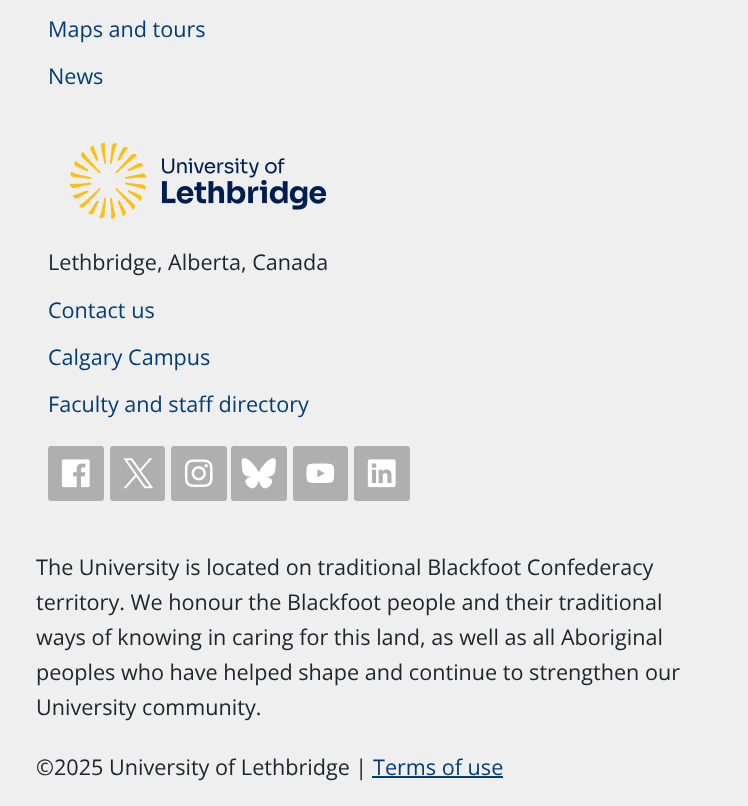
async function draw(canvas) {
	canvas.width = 748;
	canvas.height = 806;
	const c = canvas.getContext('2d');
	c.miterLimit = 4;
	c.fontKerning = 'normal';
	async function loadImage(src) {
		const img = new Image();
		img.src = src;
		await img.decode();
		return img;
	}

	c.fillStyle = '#efefef';
	c.fillRect(0, 0, 748, 806);
	c.font = '21.6px Open Sans';
	c.fillStyle = '#003c77';
	c.fillText('Maps and tours', 48, 37);
	c.fillText('News', 48, 84);
	c.drawImage(await loadImage('img1.png'), 69, 142, 258, 77);
	c.fillStyle = '#212529';
	c.fillText('Lethbridge, Alberta, Canada', 48, 270);
	c.fillStyle = '#003c77';
	for (const [text, x, y] of [
		['Contact us', 48, 318],
		['Calgary Campus', 48, 365],
		['Faculty and staff directory', 48, 412],
	]) {
		c.fillText(text, x, y);
	}
	c.fillStyle = '#afafaf';
	c.beginPath();
	c.roundRect(48, 446, 56, 55, 3);
	c.fill();
	c.beginPath();
	c.roundRect(110, 446, 55, 55, 3);
	c.fill();
	c.beginPath();
	c.roundRect(171, 446, 56, 55, 3);
	c.fill();
	c.beginPath();
	c.roundRect(231, 446, 56, 55, 3);
	c.fill();
	c.beginPath();
	c.roundRect(293, 446, 55, 55, 3);
	c.fill();
	c.beginPath();
	c.roundRect(354, 446, 56, 55, 3);
	c.fill();
	c.drawImage(await loadImage('img2.png'), 61, 459, 29, 29);
	c.drawImage(await loadImage('img3.png'), 123, 458, 30, 31);
	c.drawImage(await loadImage('img4.png'), 184, 459, 29, 29);
	c.drawImage(await loadImage('img5.png'), 241, 458, 35, 31);
	c.drawImage(await loadImage('img6.png'), 306, 463, 29, 20);
	c.drawImage(await loadImage('img7.png'), 367, 459, 31, 29);
	c.fillStyle = '#212529';
	for (const [text, x, y] of [
		['The University is located on traditional Blackfoot Confederacy', 36, 575],
		['territory. We honour the Blackfoot people and their traditional', 36, 610],
		['ways of knowing in caring for this land, as well as all Aboriginal', 36, 645],
		['peoples who have helped shape and continue to strengthen our', 36, 680],
		['University community.', 36, 715],
		['©2025 University of Lethbridge |', 36, 775],
	]) {
		c.fillText(text, x, y);
	}
	c.fillStyle = '#003c77';
	c.fillText('Terms of use', 373, 775);
	c.fillRect(372, 776, 131, 2);
}

draw(document.querySelector('canvas'));
